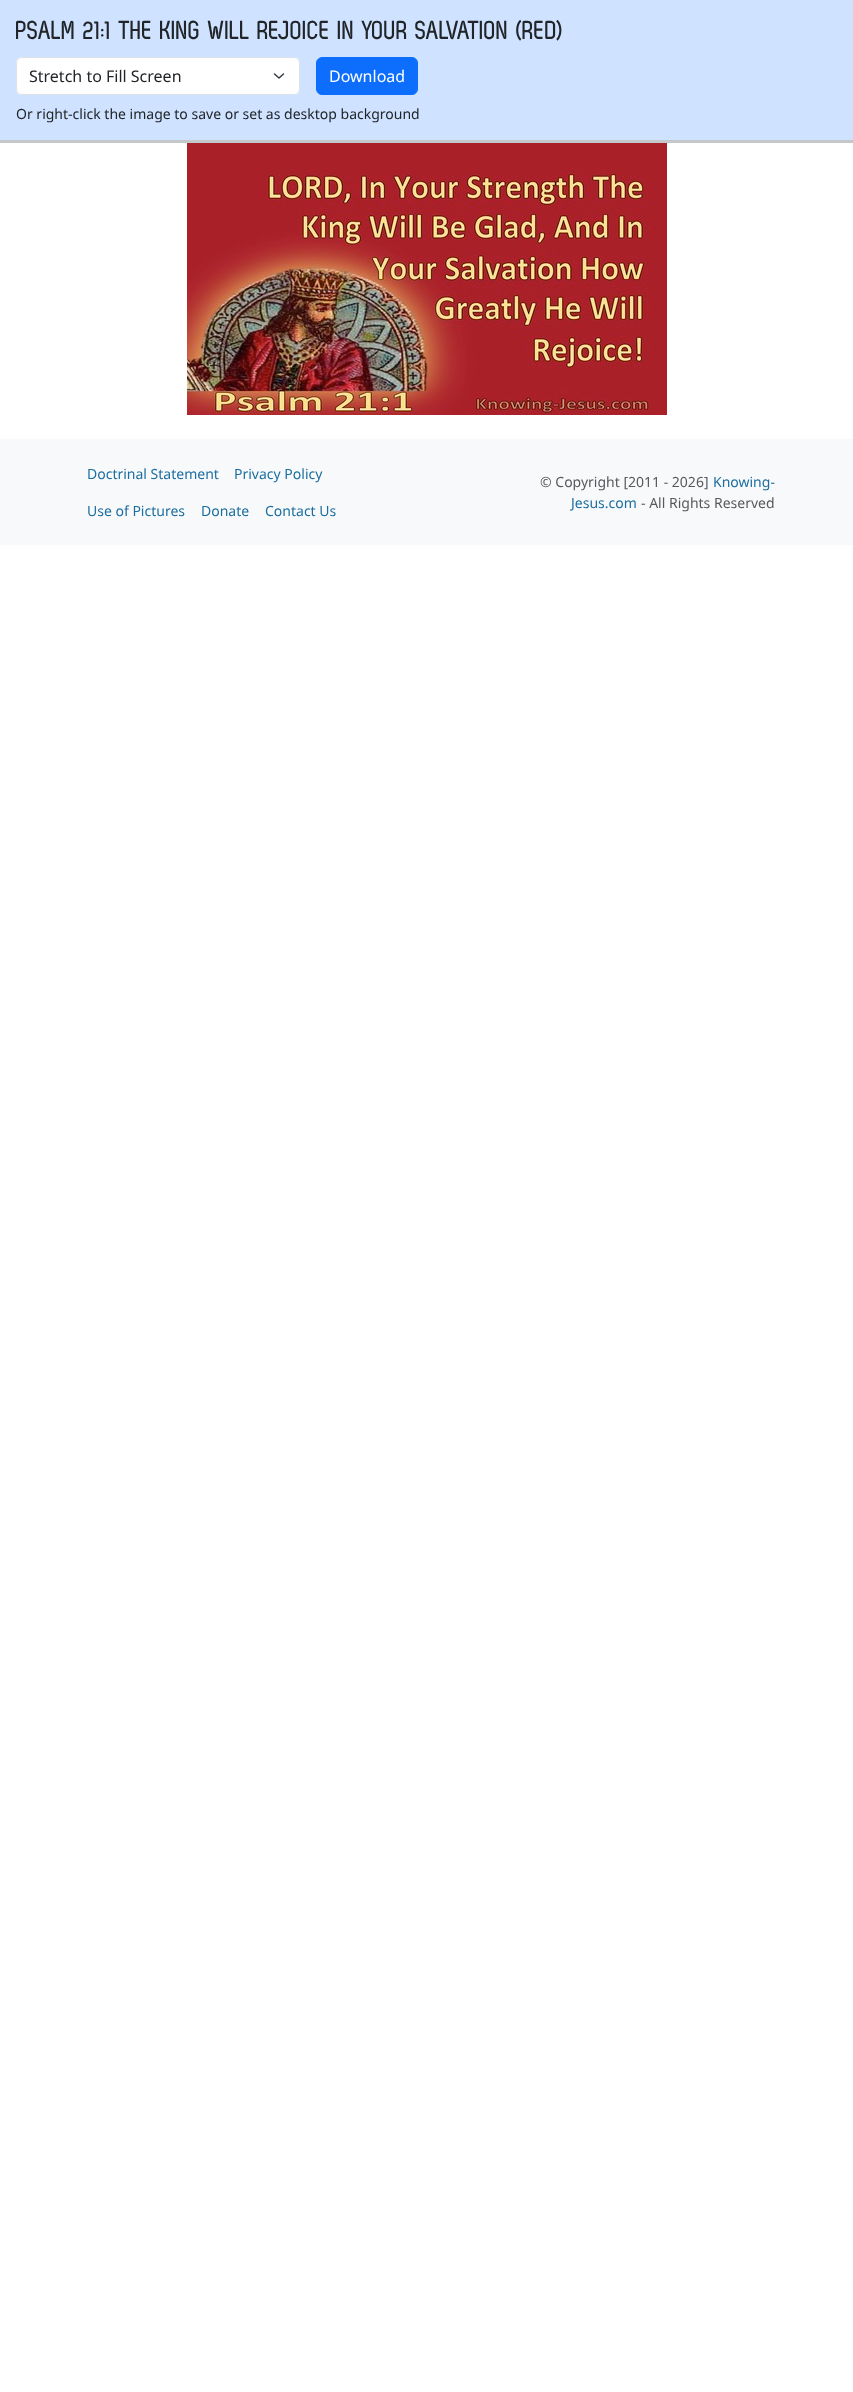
async function draw(canvas) {
	canvas.width = 853;
	canvas.height = 2392;
	const c = canvas.getContext('2d');
	c.miterLimit = 4;
	c.fontKerning = 'normal';
	async function loadImage(src) {
		const img = new Image();
		img.src = src;
		await img.decode();
		return img;
	}

	c.fillStyle = '#fff';
	c.fillRect(0, 0, 853, 2392);
	c.fillStyle = '#cfe2ff';
	c.fillRect(0, 0, 853, 140);
	c.fillStyle = '#c4c8cb';
	c.fillRect(0, 140, 853, 3);
	c.font = 'bold 26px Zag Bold';
	c.fillStyle = '#212529';
	c.fillText('PSALM 21:1 THE KING WILL REJOICE IN YOUR SALVATION (RED)', 16, 39);
	c.fillStyle = '#fff';
	c.beginPath();
	c.roundRect(16, 57, 284, 38, 6);
	c.fill();
	c.beginPath();
	c.moveTo(274.5, 74);
	c.lineTo(279, 78);
	c.lineTo(283.5, 74);
	c.strokeStyle = '#343a40';
	c.lineWidth = 1.5;
	c.lineCap = 'round';
	c.lineJoin = 'round';
	c.stroke();
	c.beginPath();
	c.roundRect(16.5, 57.5, 283, 37, 5.5);
	c.strokeStyle = '#dee2e6';
	c.lineWidth = 1;
	c.lineJoin = 'miter';
	c.stroke();
	c.font = '16px Noto Sans';
	c.fillStyle = '#212529';
	c.fillText('Stretch to Fill Screen', 29, 82);
	c.fillStyle = '#0d6efd';
	c.beginPath();
	c.roundRect(316.5, 57.5, 101, 37, 5.5);
	c.fill();
	c.strokeStyle = '#0d6efd';
	c.stroke();
	c.fillStyle = '#fff';
	c.fillText('Download', 329, 82);
	c.font = '14px Noto Sans';
	c.fillStyle = '#212529';
	c.fillText('Or right-click the image to save or set as desktop background', 16, 119);
	c.drawImage(await loadImage('img1.png'), 187, 143, 480, 272);
	c.fillStyle = '#f8f9fa';
	c.fillRect(0, 439, 853, 106);
	c.fillStyle = '#1c6ea0';
	for (const [text, x, y] of [
		['Doctrinal Statement', 87, 479],
		['Privacy Policy', 234, 479],
		['Use of Pictures', 87, 516],
		['Donate', 201, 516],
		['Contact Us', 265, 516],
	]) {
		c.fillText(text, x, y);
	}
	c.fillStyle = '#575a5d';
	c.fillText('© Copyright [2011 - 2026]', 540, 487);
	c.fillStyle = '#1c6ea0';
	c.fillText('Knowing-', 713, 487);
	c.fillText('Jesus.com', 571, 508);
	c.fillStyle = '#575a5d';
	c.fillText('- All Rights Reserved', 641, 508);
}

draw(document.querySelector('canvas'));
